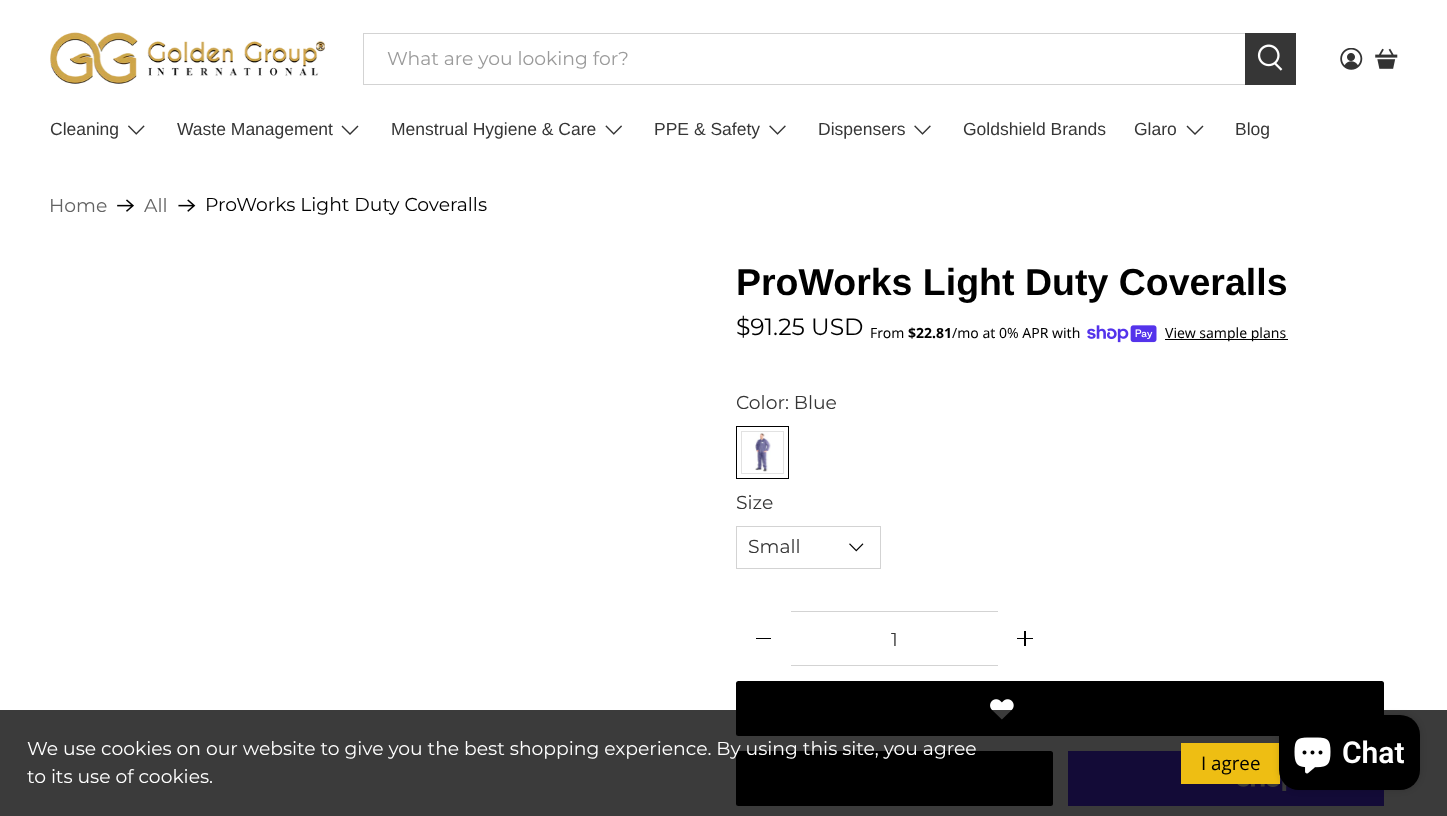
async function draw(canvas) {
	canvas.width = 1447;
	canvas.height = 816;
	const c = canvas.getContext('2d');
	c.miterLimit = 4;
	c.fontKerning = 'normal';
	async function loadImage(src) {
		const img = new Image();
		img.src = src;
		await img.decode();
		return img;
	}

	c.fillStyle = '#fff';
	c.fillRect(0, 0, 1447, 816);
	c.drawImage(await loadImage('img1.png'), 50, 32, 275, 52);
	c.strokeStyle = '#d3d3d3';
	c.strokeRect(363.5, 33.5, 882, 51);
	c.font = '18.75px Montserrat';
	c.fillStyle = '#9b9b9b';
	c.fillText('What are you looking for?', 387, 65);
	c.fillStyle = '#363636';
	c.fillRect(1245, 33, 51, 52);
	c.drawImage(await loadImage('img2.png'), 1257, 44, 26, 27);
	c.drawImage(await loadImage('img3.png'), 1340, 48, 23, 22);
	c.drawImage(await loadImage('img4.png'), 1375, 48, 23, 21);
	c.font = '17.5px Liberation Sans';
	c.fillText('Cleaning', 50, 135);
	c.drawImage(await loadImage('img5.png'), 128, 125, 17, 10);
	c.fillText('Waste Management', 177, 135);
	c.fillStyle = '#333';
	c.beginPath();
	c.moveTo(350, 135);
	c.lineTo(341.5, 126.5);
	c.lineTo(342.5, 125.5);
	c.lineTo(350, 133);
	c.lineTo(357.5, 125.5);
	c.lineTo(358.5, 126.5);
	c.closePath();
	c.fill();
	c.fillStyle = '#363636';
	c.fillText('Menstrual Hygiene & Care', 391, 135);
	c.drawImage(await loadImage('img6.png'), 605, 125, 17, 10);
	c.fillText('PPE & Safety', 654, 135);
	c.drawImage(await loadImage('img7.png'), 769, 125, 17, 10);
	c.fillText('Dispensers', 818, 135);
	c.drawImage(await loadImage('img7.png'), 914, 125, 17, 10);
	c.fillText('Goldshield Brands', 963, 135);
	c.fillText('Glaro', 1134, 135);
	c.fillStyle = '#333';
	c.beginPath();
	c.moveTo(1195, 135);
	c.lineTo(1186.5, 126.5);
	c.lineTo(1187.5, 125.5);
	c.lineTo(1195, 133);
	c.lineTo(1202.5, 125.5);
	c.lineTo(1203.5, 126.5);
	c.closePath();
	c.fill();
	c.fillStyle = '#363636';
	c.fillText('Blog', 1235, 135);
	c.font = '18.75px Montserrat';
	c.fillStyle = '#636363';
	c.fillText('Home', 49, 212);
	c.drawImage(await loadImage('img8.png'), 117, 199, 17, 13);
	c.fillText('All', 144, 212);
	c.drawImage(await loadImage('img9.png'), 178, 199, 18, 13);
	c.fillStyle = '#000';
	c.fillText('ProWorks Light Duty Coveralls', 205, 211);
	c.font = 'bold 37.5px Liberation Sans';
	c.fillText('ProWorks Light Duty Coveralls', 736, 295);
	c.font = '23.5px Montserrat';
	c.fillText('$91.25 USD', 736, 335);
	c.font = '14px Noto Sans';
	c.fillText('From', 870, 338);
	c.font = 'bold 14px Noto Sans';
	c.fillText('$22.81', 908, 338);
	c.font = '14px Noto Sans';
	c.fillText('/mo at 0% APR with', 952, 338);
	c.drawImage(await loadImage('img10.png'), 1087, 325, 70, 18);
	c.fillRect(1165, 339, 123, 1);
	c.fillText('View sample plans', 1165, 338);
	c.font = '18.75px Montserrat';
	c.fillStyle = '#363636';
	c.fillText('Color: Blue', 736, 409);
	c.strokeStyle = '#000';
	c.strokeRect(736.5, 426.5, 52, 52);
	c.drawImage(await loadImage('img11.png'), 755, 432, 16, 41);
	c.strokeStyle = '#e2e2e2';
	c.strokeRect(741.5, 431.5, 42, 42);
	c.fillText('Size', 736, 509);
	c.strokeStyle = '#d3d3d3';
	c.strokeRect(736.5, 526.5, 144, 42);
	c.fillText('Small', 748, 553);
	c.drawImage(await loadImage('img12.png'), 849, 543, 15, 9);
	for (const [x, y, w, h, color] of [
		[756, 638, 15, 1, '#000'],
		[791, 611, 207, 1, '#d3d3d3'],
		[791, 665, 207, 1, '#d3d3d3'],
	]) {
		c.fillStyle = color;
		c.fillRect(x, y, w, h);
	}
	c.fillStyle = '#363636';
	c.fillText('1', 891, 646);
	c.fillStyle = '#000';
	c.fillRect(1017, 638, 16, 1);
	c.fillRect(1024, 631, 2, 15);
	c.beginPath();
	c.roundRect(736, 681, 648, 55, 2.5);
	c.fill();
	c.drawImage(await loadImage('img13.png'), 990, 699, 24, 21);
	c.beginPath();
	c.roundRect(736, 751, 317, 55, 2.5);
	c.fill();
	c.fillStyle = '#5433eb';
	c.fillRect(1068, 751, 316, 55);
	c.drawImage(await loadImage('img14.png'), 1237, 776, 52, 15);
	c.fillStyle = '#000000c4';
	c.fillRect(0, 710, 1447, 106);
	c.fillStyle = '#fff';
	c.fillText('We use cookies on our website to give you the best shopping experience. By using this site, you agree', 27, 755);
	c.fillText('to its use of cookies.', 27, 783);
	c.fillStyle = '#eebe13';
	c.fillRect(1181, 743, 99, 41);
	c.font = '18.75px Open Sans';
	c.fillStyle = '#000';
	c.fillText('I agree', 1201, 770);
	c.fillStyle = '#00000026';
	c.filter = 'blur(3px)';
	c.beginPath();
	c.roundRect(1279, 715, 141, 75, 20);
	c.fill();
	c.filter = 'none';
	c.fillStyle = '#000';
	c.beginPath();
	c.roundRect(1279, 715, 141, 75, 20);
	c.fill();
	c.drawImage(await loadImage('img15.png'), 1294, 737, 37, 37);
	c.font = '600 30px Roboto';
	c.fillStyle = '#fff';
	c.fillText('Chat', 1342, 763);
}

draw(document.querySelector('canvas'));
